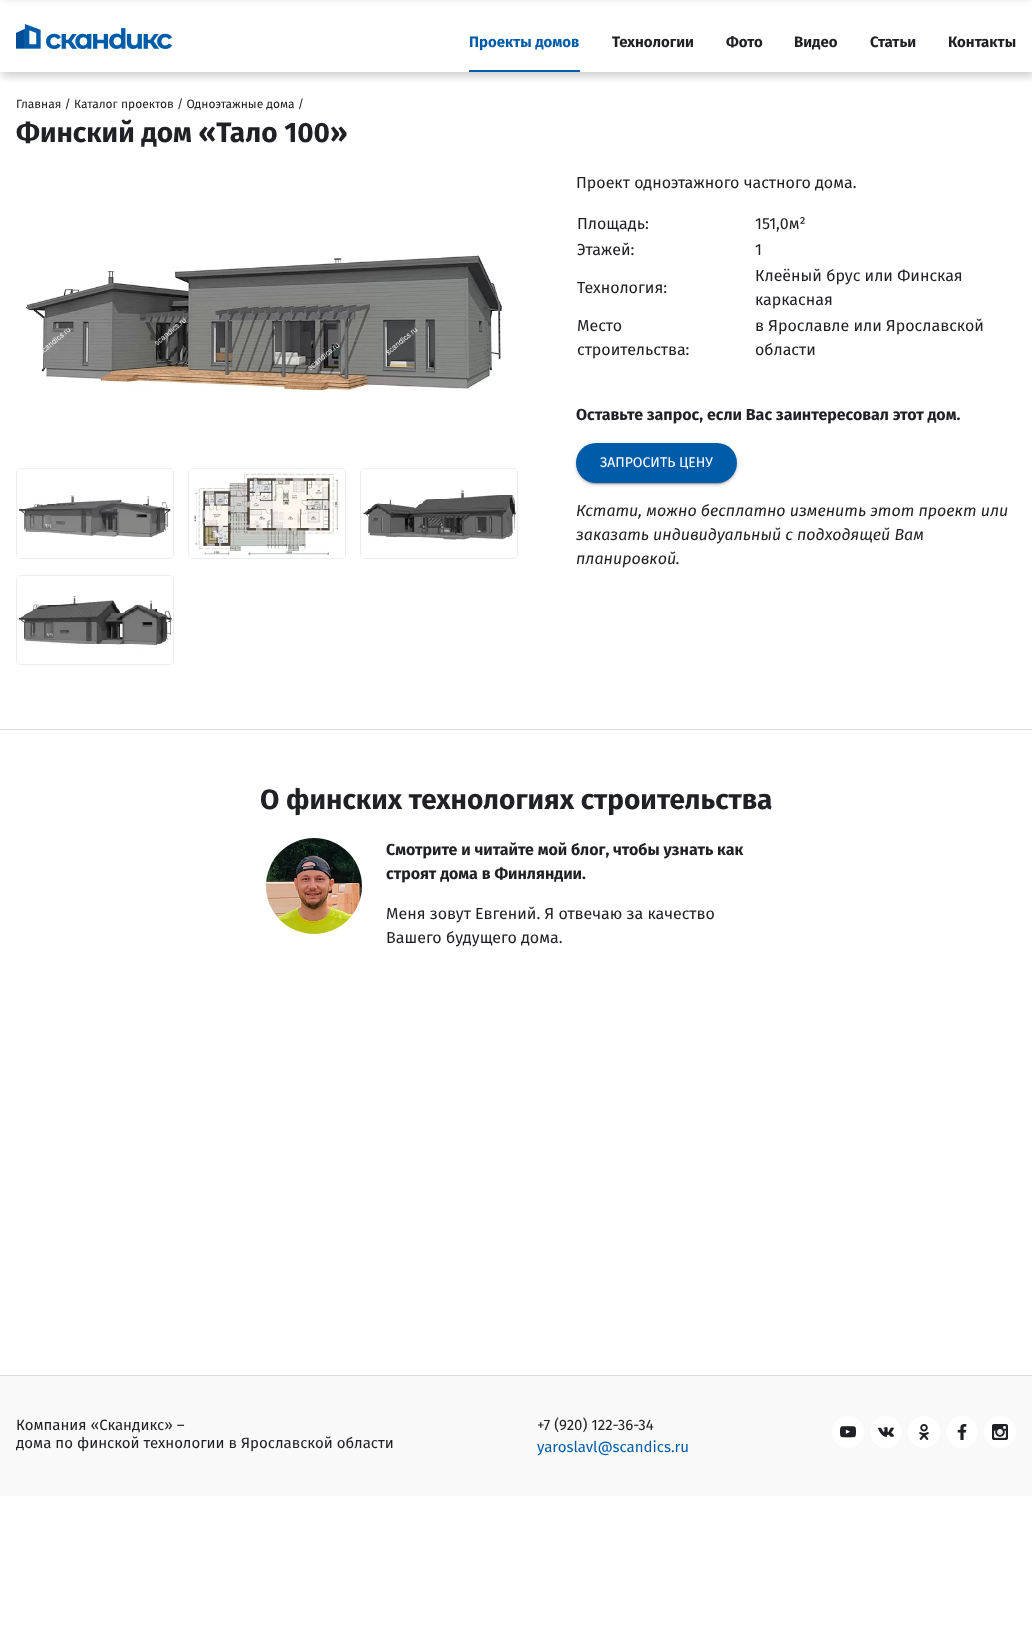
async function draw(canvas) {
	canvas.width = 1032;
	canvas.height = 1629;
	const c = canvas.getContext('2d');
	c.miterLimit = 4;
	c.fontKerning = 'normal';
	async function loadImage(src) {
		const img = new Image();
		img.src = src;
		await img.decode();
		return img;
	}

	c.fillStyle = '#fff';
	c.fillRect(0, 0, 1032, 1629);
	c.fillStyle = '#00000033';
	c.filter = 'blur(5px)';
	c.beginPath();
	c.rect(2, -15, 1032, 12);
	c.fill();
	c.filter = 'none';
	c.save();
	c.beginPath();
	c.rect(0, 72, 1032, 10);
	c.clip();
	c.filter = 'blur(5px)';
	c.beginPath();
	c.rect(2, 4, 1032, 72);
	c.fill();
	c.filter = 'none';
	c.restore();
	c.drawImage(await loadImage('img1.png'), 16, 24, 156, 25);
	c.font = 'bold 15px Fira Sans';
	c.fillStyle = '#005ca9';
	c.fillText('Проекты домов', 469, 47);
	c.fillRect(469, 70, 111, 2);
	c.fillStyle = '#202124';
	for (const [text, x, y] of [
		['Технологии', 612, 47],
		['Фото', 726, 47],
		['Видео', 794, 47],
		['Статьи', 870, 47],
		['Контакты', 948, 47],
	]) {
		c.fillText(text, x, y);
	}
	c.font = '12px Fira Sans';
	c.fillText('Главная / Каталог проектов / Одноэтажные дома /', 16, 108);
	c.font = 'bold 28px Fira Sans';
	c.fillText('Финский дом «Тало 100»', 16, 142);
	c.drawImage(await loadImage('img2.png'), 26, 254, 477, 137);
	c.beginPath();
	c.roundRect(16.5, 468.5, 157, 90, 4.5);
	c.strokeStyle = '#ececec';
	c.stroke();
	c.drawImage(await loadImage('img3.png'), 17, 469, 156, 89);
	c.beginPath();
	c.roundRect(188.5, 468.5, 157, 90, 4.5);
	c.stroke();
	c.drawImage(await loadImage('img4.png'), 189, 469, 156, 89);
	c.beginPath();
	c.roundRect(360.5, 468.5, 157, 90, 4.5);
	c.stroke();
	c.drawImage(await loadImage('img5.png'), 361, 469, 156, 89);
	c.beginPath();
	c.roundRect(16.5, 575.5, 157, 89, 4.5);
	c.stroke();
	c.drawImage(await loadImage('img6.png'), 17, 576, 156, 88);
	c.font = '16px Fira Sans';
	for (const [text, x, y] of [
		['Проект одноэтажного частного дома.', 576, 188],
		['Площадь:', 577, 229],
		['151,0м²', 755, 229],
		['Этажей:', 577, 255],
		['1', 755, 255],
		['Технология:', 577, 293],
		['Клеёный брус или Финская', 755, 281],
		['каркасная', 755, 305],
		['Место', 577, 331],
		['строительства:', 577, 355],
		['в Ярославле или Ярославской', 755, 331],
		['области', 755, 355],
	]) {
		c.fillText(text, x, y);
	}
	c.font = 'bold 16px Fira Sans';
	c.fillText('Оставьте запрос, если Вас заинтересовал этот дом.', 576, 420);
	c.fillStyle = '#0000001f';
	c.filter = 'blur(2.5px)';
	c.beginPath();
	c.roundRect(576, 444, 161, 40, 20);
	c.fill();
	c.filter = 'none';
	c.fillStyle = '#00000024';
	c.filter = 'blur(1px)';
	c.beginPath();
	c.roundRect(576, 445, 161, 40, 20);
	c.fill();
	c.filter = 'none';
	c.fillStyle = '#00000033';
	c.filter = 'blur(0.5px)';
	c.beginPath();
	c.roundRect(578, 448, 157, 36, 18);
	c.fill();
	c.filter = 'none';
	c.fillStyle = '#005ca9';
	c.beginPath();
	c.roundRect(576, 443, 161, 40, 20);
	c.fill();
	c.font = '14px Fira Sans';
	c.fillStyle = '#fff';
	c.fillText('ЗАПРОСИТЬ ЦЕНУ', 600, 467);
	c.font = 'italic 16px Fira Sans';
	c.fillStyle = '#202124';
	for (const [text, x, y] of [
		['Кстати, можно бесплатно изменить этот проект или', 576, 516],
		['заказать индивидуальный с подходящей Вам', 576, 540],
		['планировкой.', 576, 564],
	]) {
		c.fillText(text, x, y);
	}
	c.fillStyle = '#d9d9d9';
	c.fillRect(0, 729, 1032, 1);
	c.font = 'bold 28px Fira Sans';
	c.fillStyle = '#202124';
	c.fillText('О финских технологиях строительства', 260, 809);
	c.drawImage(await loadImage('img7.png'), 266, 838, 96, 96);
	c.font = 'bold 16px Fira Sans';
	c.fillText('Смотрите и читайте мой блог, чтобы узнать как', 386, 855);
	c.fillText('строят дома в Финляндии.', 386, 879);
	c.font = '16px Fira Sans';
	c.fillText('Меня зовут Евгений. Я отвечаю за качество', 386, 919);
	c.fillText('Вашего будущего дома.', 386, 943);
	c.fillStyle = '#f9f9f9';
	c.fillRect(0, 1376, 1032, 120);
	c.fillStyle = '#d9d9d9';
	c.fillRect(0, 1375, 1032, 1);
	c.font = '15px Fira Sans';
	c.fillStyle = '#202124';
	for (const [text, x, y] of [
		['Компания «Скандикс» –', 16, 1430],
		['дома по финской технологии в Ярославской области', 16, 1448],
		['+7 (920) 122-36-34', 537, 1430],
	]) {
		c.fillText(text, x, y);
	}
	c.fillStyle = '#005ca9';
	c.fillText('yaroslavl@scandics.ru', 537, 1452);
	c.fillStyle = '#fff';
	c.beginPath();
	c.arc(848, 1432, 16, 0, 2 * Math.PI);
	c.fill();
	c.drawImage(await loadImage('img8.png'), 840, 1426, 16, 12);
	c.beginPath();
	c.arc(886, 1432, 16, 0, 2 * Math.PI);
	c.fill();
	c.drawImage(await loadImage('img9.png'), 878, 1427, 16, 10);
	c.beginPath();
	c.arc(924, 1432, 16, 0, 2 * Math.PI);
	c.fill();
	c.drawImage(await loadImage('img10.png'), 919, 1424, 10, 16);
	c.beginPath();
	c.arc(962, 1432, 16, 0, 2 * Math.PI);
	c.fill();
	c.drawImage(await loadImage('img11.png'), 957, 1424, 10, 16);
	c.beginPath();
	c.arc(1000, 1432, 16, 0, 2 * Math.PI);
	c.fill();
	c.drawImage(await loadImage('img12.png'), 992, 1424, 16, 16);
}

draw(document.querySelector('canvas'));
